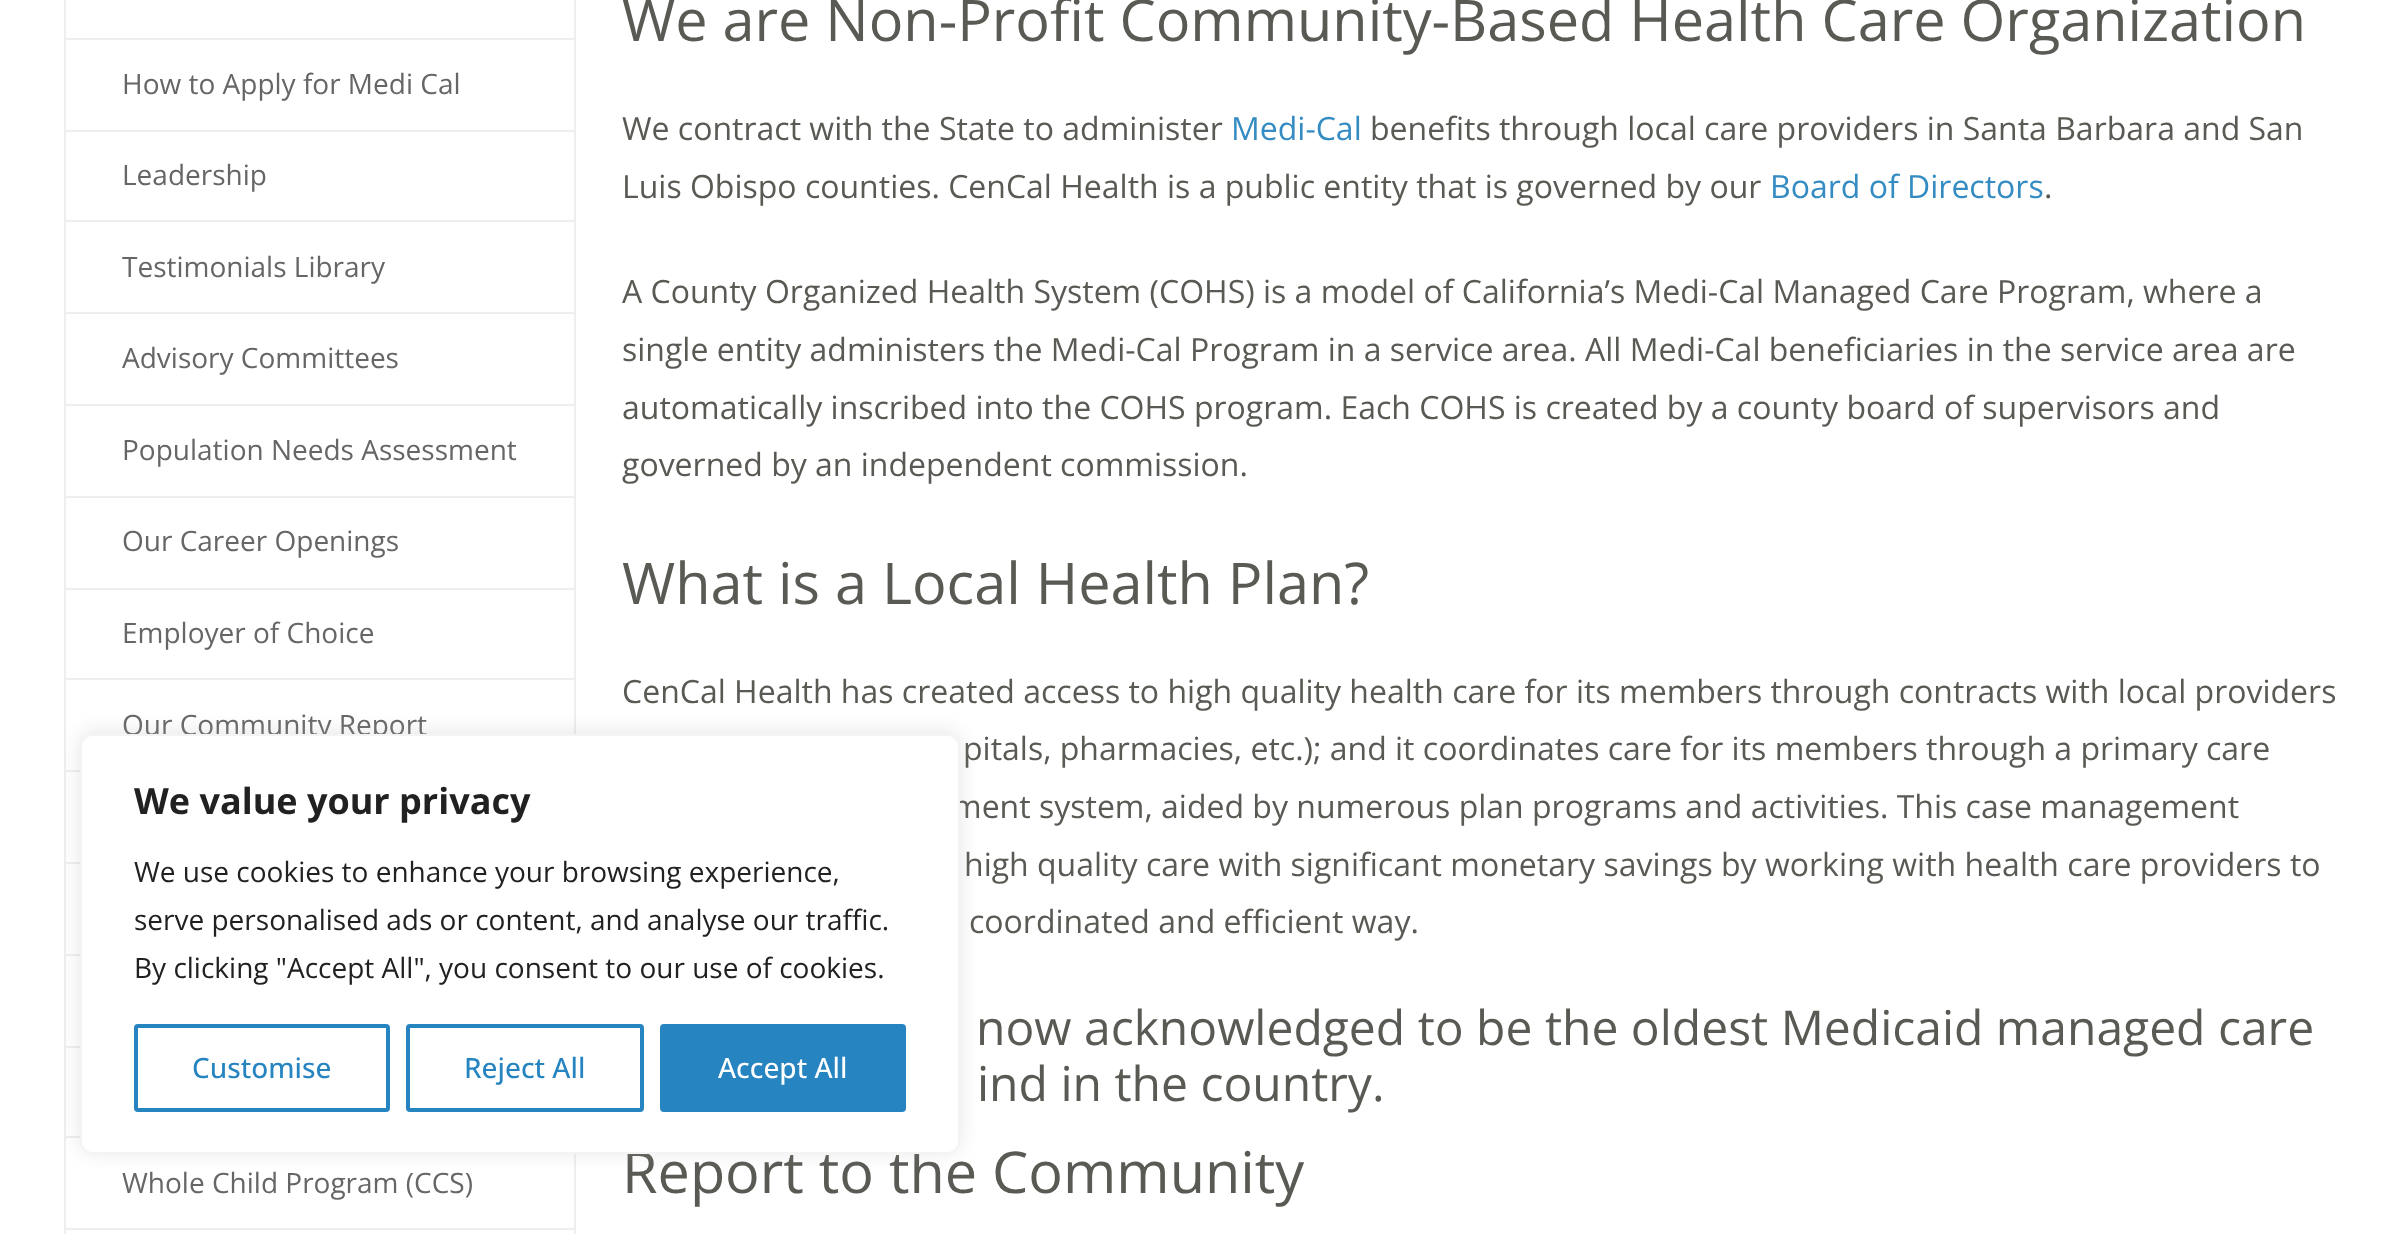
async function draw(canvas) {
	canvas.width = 2387;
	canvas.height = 1234;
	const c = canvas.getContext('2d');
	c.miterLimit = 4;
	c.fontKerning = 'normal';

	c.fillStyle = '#fff';
	c.fillRect(0, 0, 2387, 1234);
	for (const [x, y, w, h, color] of [
		[574, 0, 2, 734, '#eee'],
		[64, 38, 512, 2, '#eee'],
		[64, 0, 2, 40, '#eee'],
		[64, 130, 512, 2, '#eee'],
		[64, 40, 2, 92, '#eee'],
	]) {
		c.fillStyle = color;
		c.fillRect(x, y, w, h);
	}
	c.font = '28px Open Sans';
	c.fillStyle = '#666';
	c.fillText('How to Apply for Medi Cal', 122, 94);
	c.fillStyle = '#eee';
	c.fillRect(64, 220, 512, 2);
	c.fillRect(64, 132, 2, 90);
	c.fillStyle = '#666';
	c.fillText('Leadership', 122, 185);
	c.fillStyle = '#eee';
	c.fillRect(64, 312, 512, 2);
	c.fillRect(64, 222, 2, 92);
	c.fillStyle = '#666';
	c.fillText('Testimonials Library', 122, 277);
	c.fillStyle = '#eee';
	c.fillRect(64, 404, 512, 2);
	c.fillRect(64, 314, 2, 92);
	c.fillStyle = '#666';
	c.fillText('Advisory Committees', 122, 368);
	c.fillStyle = '#eee';
	c.fillRect(64, 496, 512, 2);
	c.fillRect(64, 406, 2, 92);
	c.fillStyle = '#666';
	c.fillText('Population Needs Assessment', 122, 460);
	c.fillStyle = '#eee';
	c.fillRect(64, 588, 512, 2);
	c.fillRect(64, 498, 2, 92);
	c.fillStyle = '#666';
	c.fillText('Our Career Openings', 122, 551);
	c.fillStyle = '#eee';
	c.fillRect(64, 678, 512, 2);
	c.fillRect(64, 590, 2, 90);
	c.fillStyle = '#666';
	c.fillText('Employer of Choice', 122, 643);
	c.fillStyle = '#eee';
	c.fillRect(64, 770, 16, 2);
	c.fillRect(64, 680, 2, 92);
	c.fillStyle = '#666';
	c.fillText('Our Community Report', 122, 735);
	for (const [x, y, w, h, color] of [
		[64, 862, 16, 2, '#eee'],
		[64, 772, 2, 92, '#eee'],
		[64, 954, 16, 2, '#eee'],
		[64, 864, 2, 92, '#eee'],
		[64, 1046, 16, 2, '#eee'],
		[64, 956, 2, 92, '#eee'],
		[64, 1136, 16, 2, '#eee'],
		[64, 1048, 2, 90, '#eee'],
		[574, 1154, 2, 80, '#eee'],
		[64, 1228, 512, 2, '#eee'],
		[64, 1138, 2, 96, '#eee'],
	]) {
		c.fillStyle = color;
		c.fillRect(x, y, w, h);
	}
	c.fillStyle = '#666';
	c.fillText('Whole Child Program (CCS)', 122, 1193);
	c.font = '57.6px Open Sans';
	c.fillStyle = '#595a54';
	c.fillText('We are Non-Profit Community-Based Health Care Organization', 622, 41);
	c.font = '32px Open Sans';
	c.fillText('We contract with the State to administer', 622, 140);
	c.fillStyle = '#358cc2';
	c.fillText('Medi-Cal', 1231, 140);
	c.fillStyle = '#595a54';
	c.fillText('benefits through local care providers in Santa Barbara and San', 1370, 140);
	c.fillText('Luis Obispo counties. CenCal Health is a public entity that is governed by our', 622, 198);
	c.fillStyle = '#358cc2';
	c.fillText('Board of Directors', 1770, 198);
	c.fillStyle = '#595a54';
	for (const [text, x, y] of [
		['.', 2044, 198],
		['A County Organized Health System (COHS) is a model of California’s Medi-Cal Managed Care Program, where a', 622, 303],
		['single entity administers the Medi-Cal Program in a service area. All Medi-Cal beneficiaries in the service area are', 622, 361],
		['automatically inscribed into the COHS program. Each COHS is created by a county board of supervisors and', 622, 419],
		['governed by an independent commission.', 622, 476],
	]) {
		c.fillText(text, x, y);
	}
	c.font = '57.6px Open Sans';
	c.fillText('What is a Local Health Plan?', 622, 604);
	c.font = '32px Open Sans';
	for (const [text, x, y] of [
		['CenCal Health has created access to high quality health care for its members through contracts with local providers', 622, 703],
		['pitals, pharmacies, etc.); and it coordinates care for its members through a primary care', 963, 760],
		['ment system, aided by numerous plan programs and activities. This case management', 952, 818],
		['high quality care with significant monetary savings by working with health care providers to', 964, 876],
		['coordinated and efficient way.', 969, 933],
	]) {
		c.fillText(text, x, y);
	}
	c.font = '48px Open Sans';
	c.fillText('now acknowledged to be the oldest Medicaid managed care', 976, 1045);
	c.fillText('ind in the country.', 977, 1101);
	c.font = '57.6px Open Sans';
	c.fillText('Report to the Community', 622, 1193);
	c.fillStyle = '#acabab4d';
	c.filter = 'blur(10px)';
	c.beginPath();
	c.roundRect(80, 732, 880, 420, 12);
	c.fill();
	c.filter = 'none';
	c.fillStyle = '#fff';
	c.beginPath();
	c.roundRect(81, 735, 878, 418, 11);
	c.fill();
	c.strokeStyle = '#f4f4f4';
	c.lineWidth = 2;
	c.stroke();
	c.font = 'bold 36px Open Sans';
	c.fillStyle = '#212121';
	c.fillText('We value your privacy', 134, 814);
	c.font = '28px Open Sans';
	for (const [text, x, y] of [
		['We use cookies to enhance your browsing experience,', 134, 882],
		['serve personalised ads or content, and analyse our traffic.', 134, 930],
		['By clicking "Accept All", you consent to our use of cookies.', 134, 978],
	]) {
		c.fillText(text, x, y);
	}
	c.beginPath();
	c.roundRect(136, 1026, 252, 84, 2);
	c.strokeStyle = '#2684c1';
	c.lineWidth = 4;
	c.stroke();
	c.font = '500 28px Open Sans';
	c.fillStyle = '#2684c1';
	c.fillText('Customise', 192, 1078);
	c.beginPath();
	c.roundRect(408, 1026, 234, 84, 2);
	c.stroke();
	c.fillText('Reject All', 464, 1078);
	c.beginPath();
	c.roundRect(662, 1026, 242, 84, 2);
	c.fill();
	c.stroke();
	c.fillStyle = '#fff';
	c.fillText('Accept All', 718, 1078);
}

draw(document.querySelector('canvas'));
